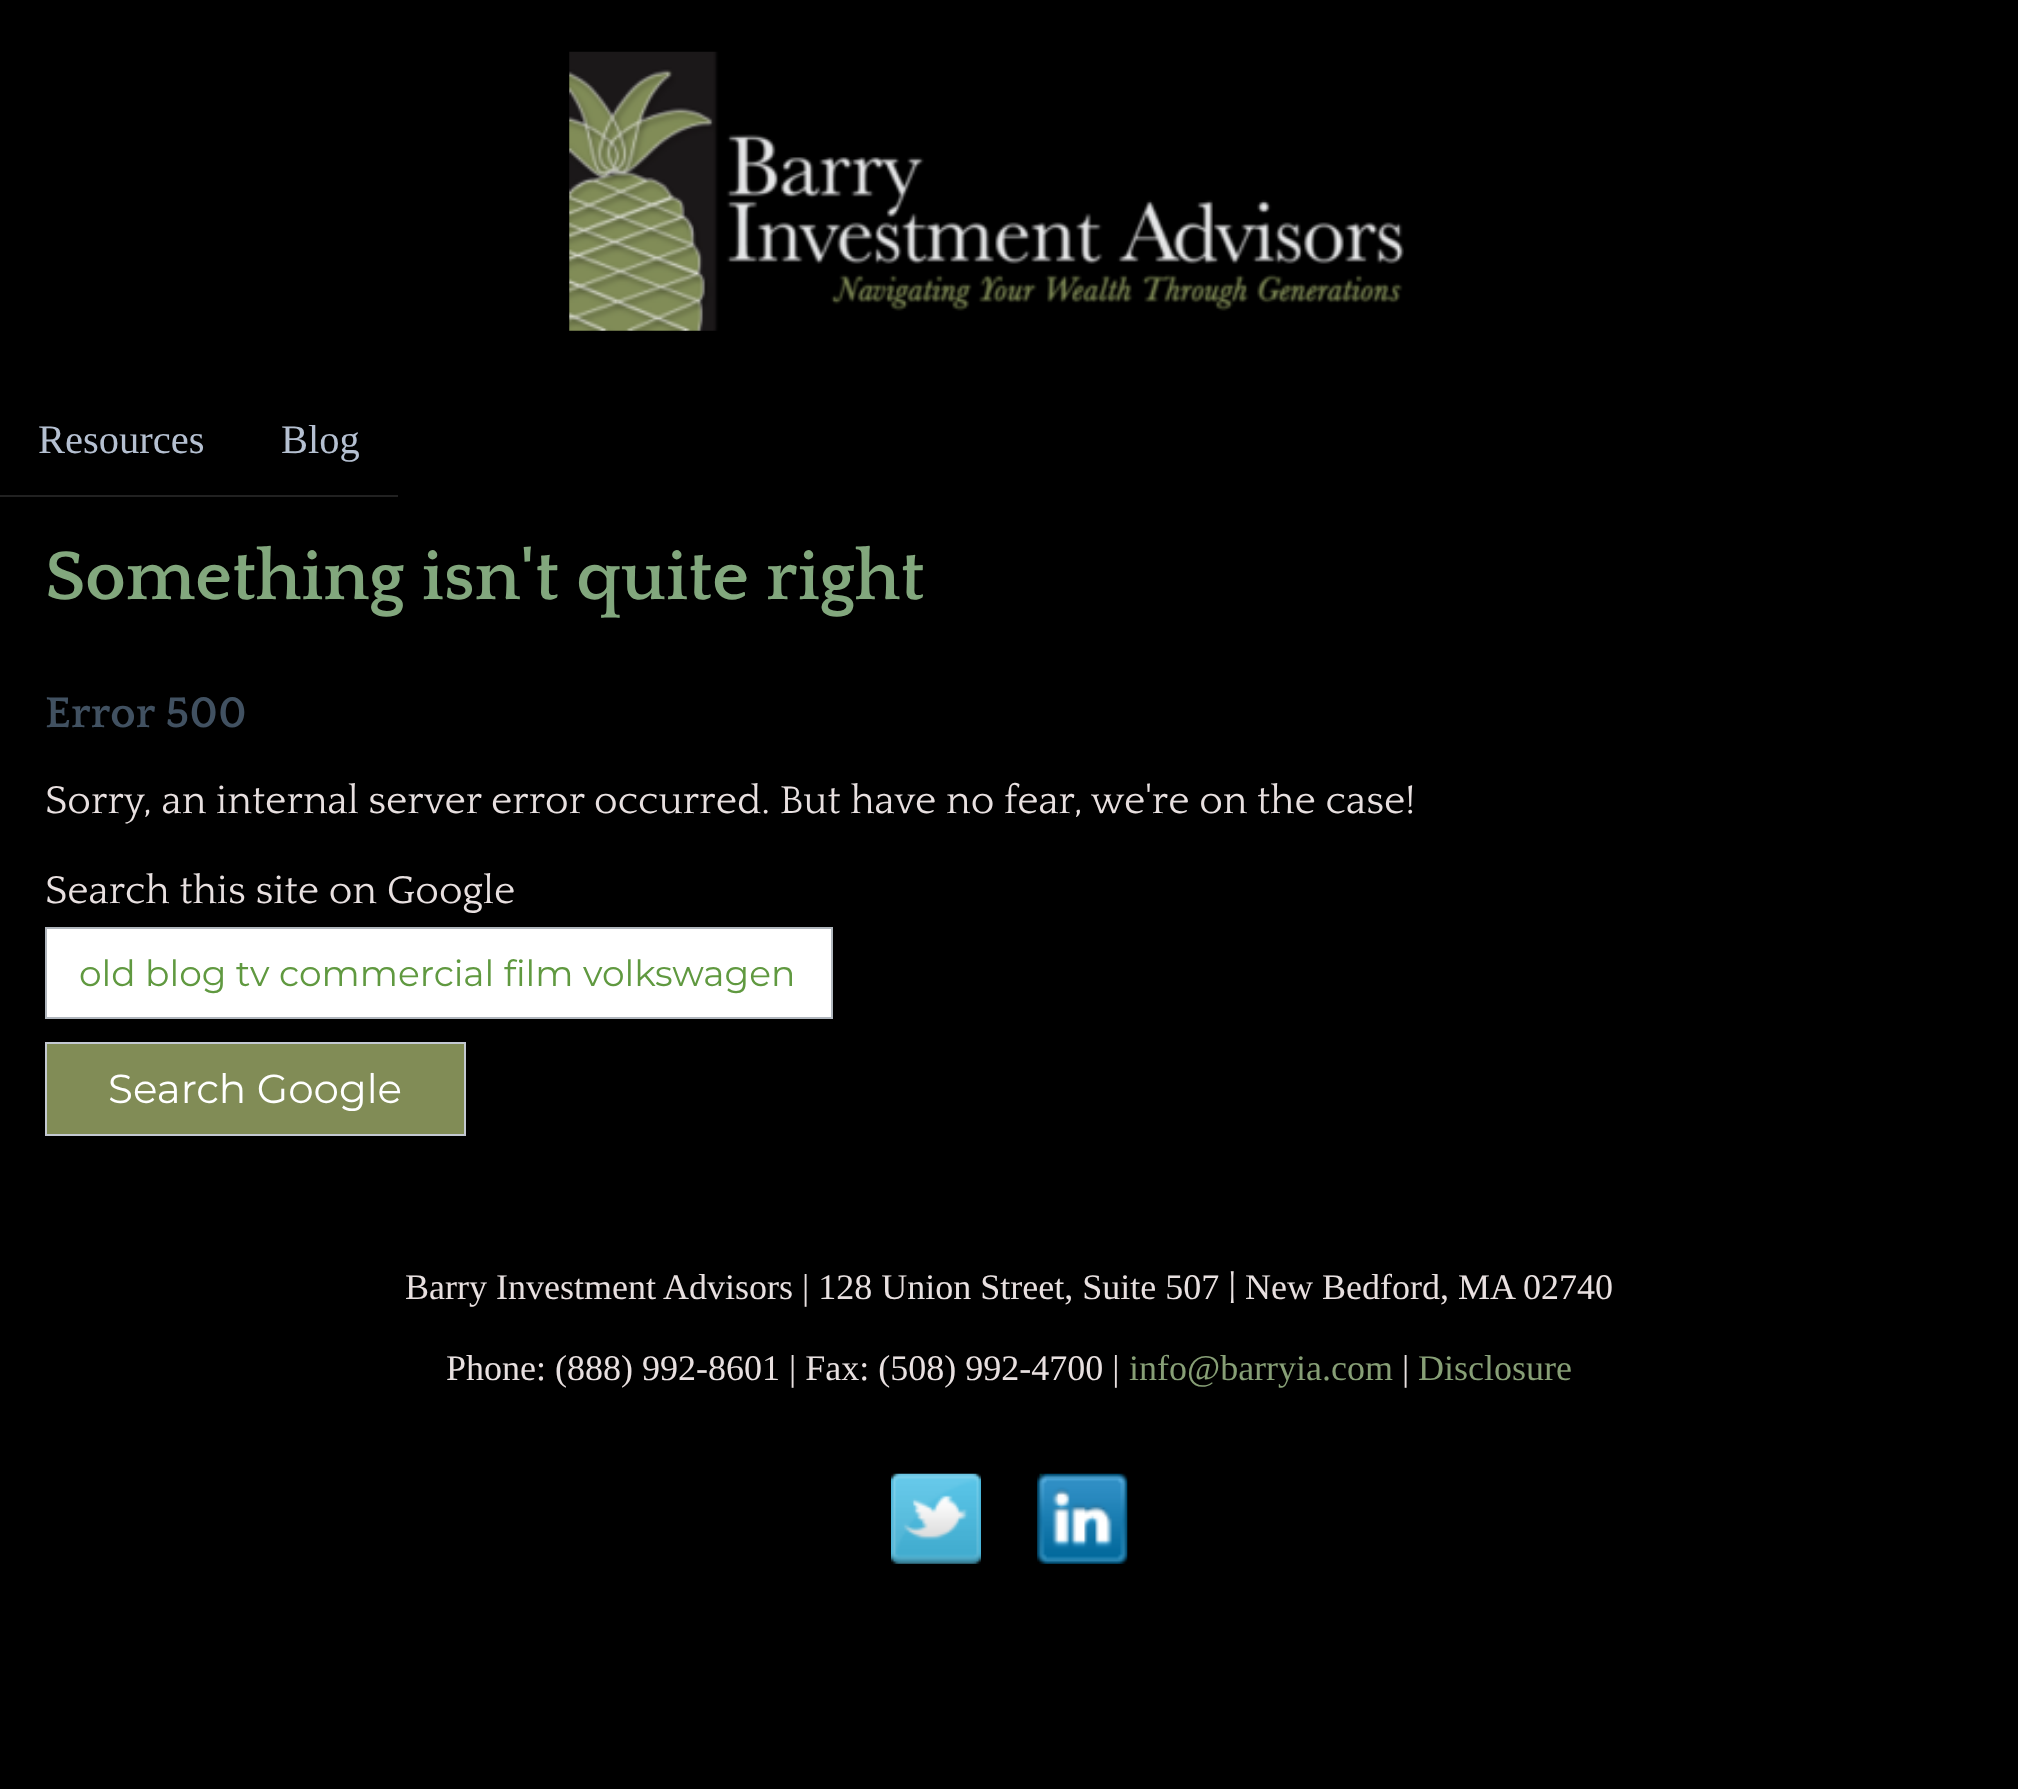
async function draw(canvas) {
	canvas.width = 2018;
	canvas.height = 1789;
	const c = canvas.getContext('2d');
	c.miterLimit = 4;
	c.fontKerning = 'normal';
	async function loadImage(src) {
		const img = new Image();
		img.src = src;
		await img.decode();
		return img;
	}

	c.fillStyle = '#000';
	c.fillRect(0, 0, 2018, 1789);
	c.drawImage(await loadImage('img1.png'), 569, 51, 835, 280);
	c.fillStyle = '#212121';
	c.fillRect(0, 495, 398, 2);
	c.font = '40.5px Liberation Serif';
	c.fillStyle = '#b5c0d1';
	c.fillText('Resources', 38, 453);
	c.fillText('Blog', 281, 453);
	c.font = 'bold 72px Quattrocento';
	c.fillStyle = '#82a77d';
	c.fillText('Something isn\'t quite right', 45, 599);
	c.font = 'bold 45px Quattrocento';
	c.fillStyle = '#415161';
	c.fillText('Error 500', 45, 727);
	c.font = '40.5px Quattrocento';
	c.fillStyle = '#e8e0e0';
	c.fillText('Sorry, an internal server error occurred. But have no fear, we\'re on the case!', 45, 813);
	c.fillText('Search this site on Google', 45, 903);
	c.fillStyle = '#fff';
	c.beginPath();
	c.rect(46, 928, 786, 90);
	c.fill();
	c.strokeStyle = '#b0b6bd';
	c.lineWidth = 2;
	c.stroke();
	c.font = '36px Montserrat';
	c.fillStyle = '#609940';
	c.fillText('old blog tv commercial film volkswagen', 79, 986);
	c.fillStyle = '#818c56';
	c.beginPath();
	c.rect(46, 1043, 419, 92);
	c.fill();
	c.strokeStyle = '#c4c9d2';
	c.stroke();
	c.font = '40.5px Montserrat';
	c.fillStyle = '#fff';
	c.fillText('Search Google', 108, 1103);
	c.font = '36px Liberation Serif';
	c.fillStyle = '#e8e0e0';
	c.fillText('Barry Investment Advisors | 128 Union Street, Suite 507', 405, 1299);
	c.font = '36px Quattrocento';
	c.fillText('|', 1228, 1299);
	c.font = '36px Liberation Serif';
	c.fillText('New Bedford, MA 02740', 1245, 1299);
	c.fillText('Phone: (888) 992-8601 | Fax: (508) 992-4700 |', 446, 1380);
	c.fillStyle = '#879f76';
	c.fillText('info@barryia.com', 1129, 1380);
	c.fillStyle = '#e8e0e0';
	c.fillText('|', 1402, 1380);
	c.fillStyle = '#879f76';
	c.fillText('Disclosure', 1418, 1380);
	c.drawImage(await loadImage('img2.png'), 891, 1473, 90, 91);
	c.drawImage(await loadImage('img3.png'), 1037, 1473, 91, 91);
}

draw(document.querySelector('canvas'));
